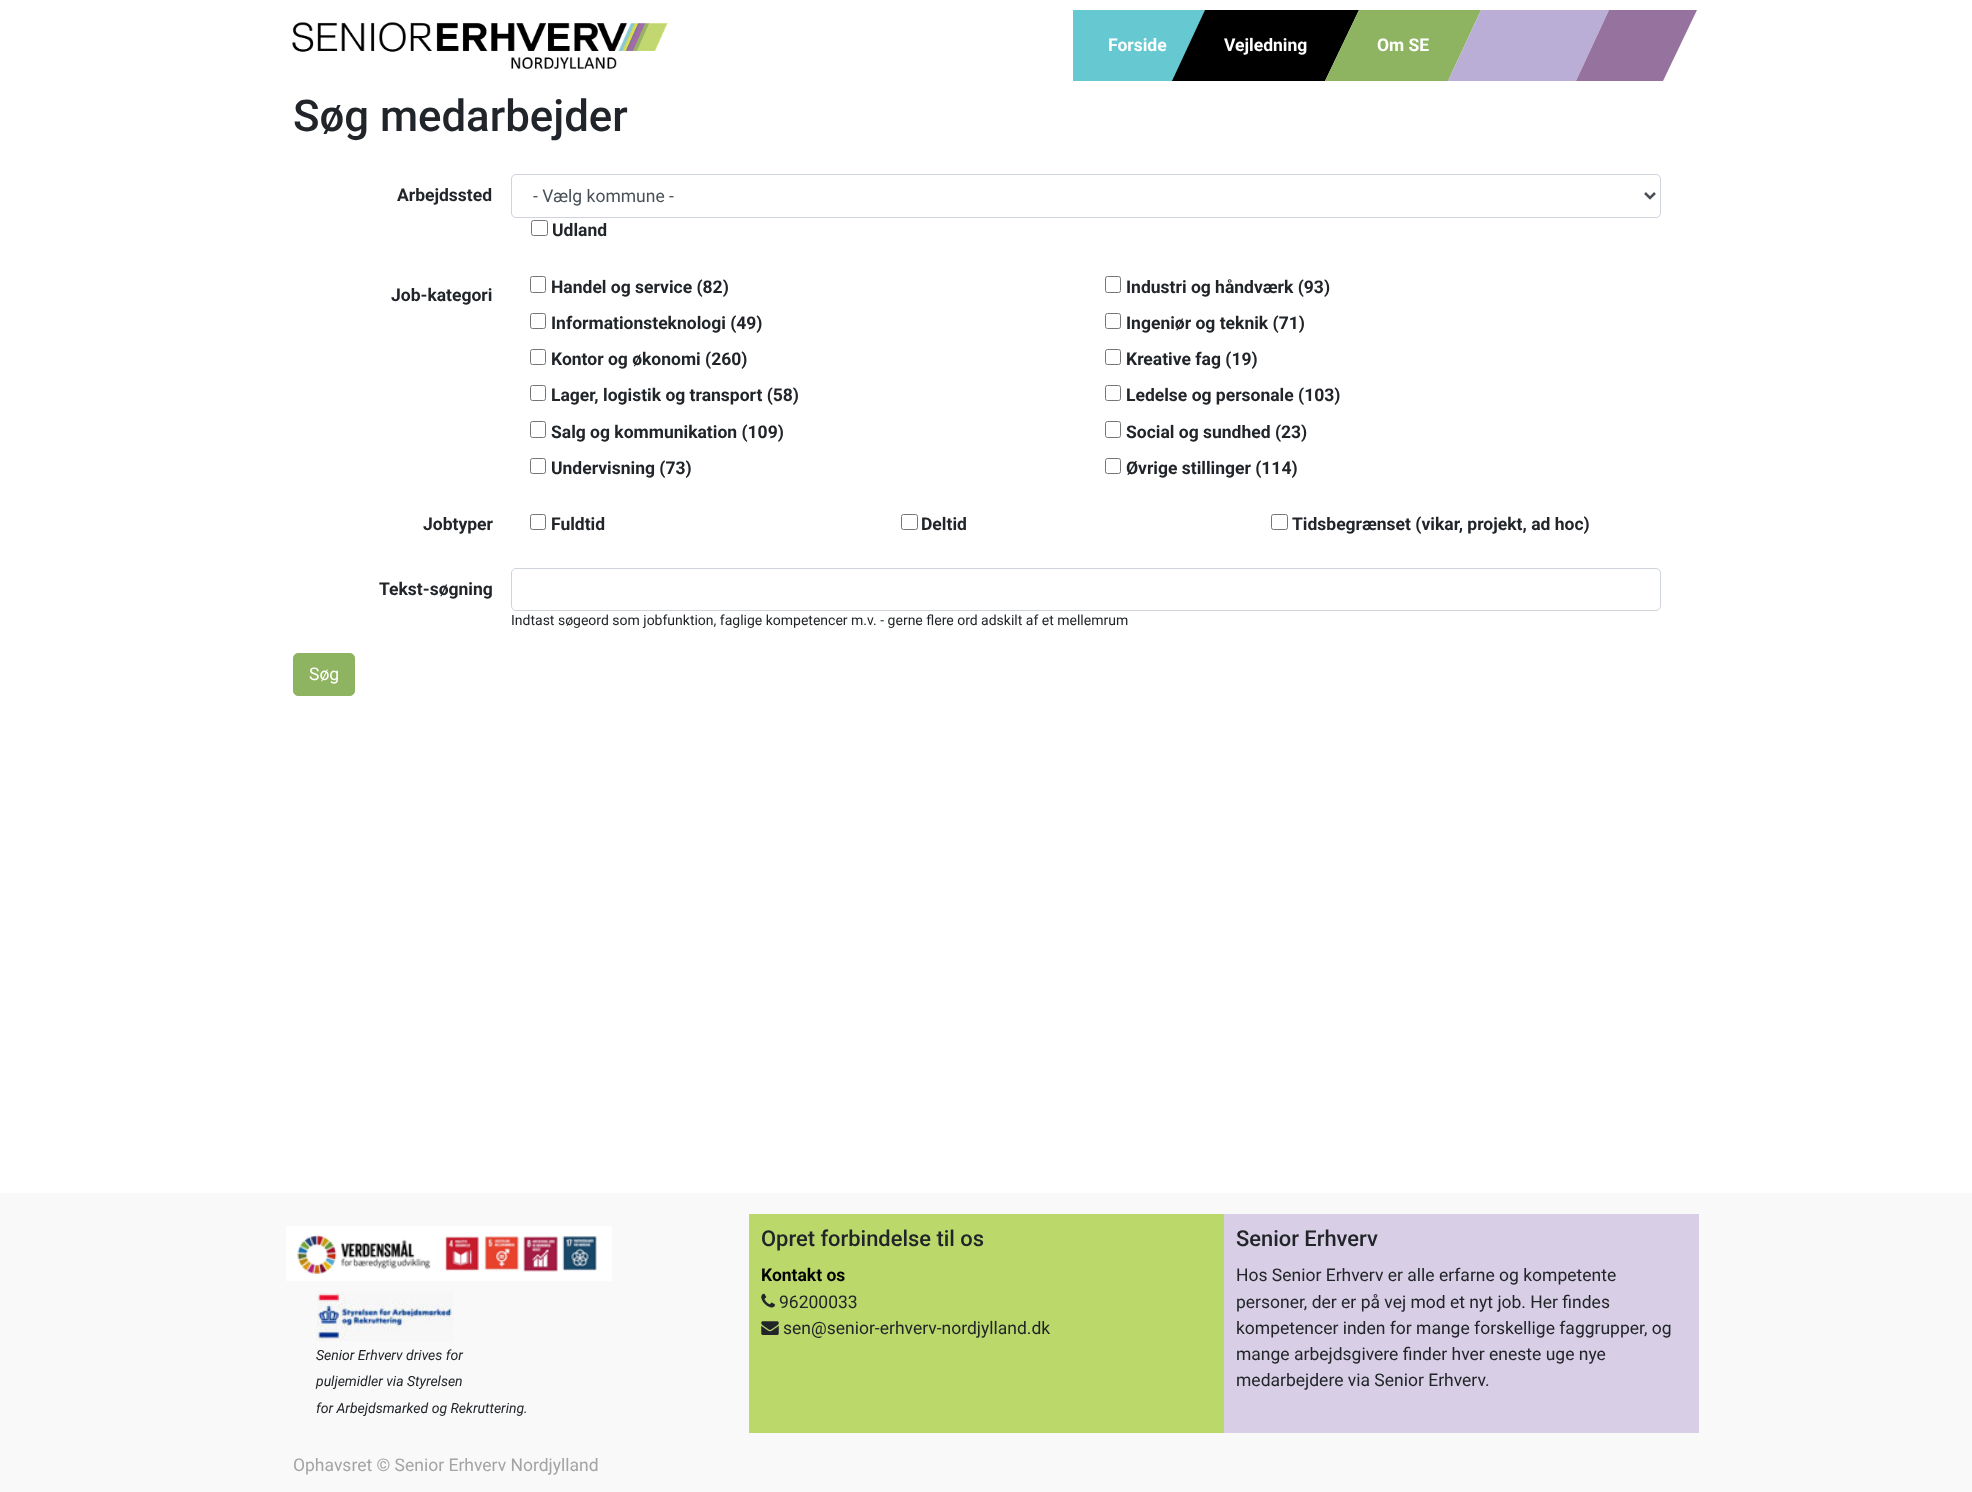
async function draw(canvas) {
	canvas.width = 1972;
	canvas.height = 1492;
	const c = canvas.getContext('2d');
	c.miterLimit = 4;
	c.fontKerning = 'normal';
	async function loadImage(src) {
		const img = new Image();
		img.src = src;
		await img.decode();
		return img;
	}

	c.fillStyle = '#fff';
	c.fillRect(0, 0, 1972, 1492);
	c.drawImage(await loadImage('img1.png'), 292, 22, 376, 47);
	c.fillStyle = '#66c9d2';
	c.fillRect(1073, 10, 132, 71);
	c.font = 'bold 17.5px Roboto';
	c.fillStyle = '#fff';
	c.fillText('Forside', 1108, 51);
	c.fillStyle = '#000';
	c.beginPath();
	c.moveTo(1205, 10);
	c.lineTo(1359, 10);
	c.lineTo(1325, 81);
	c.lineTo(1172, 81);
	c.closePath();
	c.fill();
	c.fillStyle = '#fff';
	c.fillText('Vejledning', 1224, 51);
	c.fillStyle = '#8fb461';
	c.beginPath();
	c.moveTo(1359, 10);
	c.lineTo(1481, 10);
	c.lineTo(1448, 81);
	c.lineTo(1325, 81);
	c.closePath();
	c.fill();
	c.fillStyle = '#fff';
	c.fillText('Om SE', 1377, 51);
	c.fillStyle = '#baaed6';
	c.beginPath();
	c.moveTo(1481, 10);
	c.lineTo(1609, 10);
	c.lineTo(1576, 81);
	c.lineTo(1448, 81);
	c.closePath();
	c.fill();
	c.fillStyle = '#96729e';
	c.beginPath();
	c.moveTo(1609, 10);
	c.lineTo(1697, 10);
	c.lineTo(1663, 81);
	c.lineTo(1576, 81);
	c.closePath();
	c.fill();
	c.font = '500 43.75px Roboto';
	c.fillStyle = '#212529';
	c.fillText('Søg medarbejder', 293, 131);
	c.font = 'bold 17.5px Roboto';
	c.fillText('Arbejdssted', 397, 201);
	c.beginPath();
	c.roundRect(511.5, 174.5, 1149, 43, 4.5);
	c.strokeStyle = '#ced4da';
	c.stroke();
	c.beginPath();
	c.moveTo(1645, 193);
	c.lineTo(1650, 198);
	c.lineTo(1655, 193);
	c.strokeStyle = '#495057';
	c.lineWidth = 2.5;
	c.stroke();
	c.font = '17.5px Roboto';
	c.fillStyle = '#495057';
	c.fillText('- Vælg kommune -', 533, 202);
	c.beginPath();
	c.roundRect(531.5, 220.5, 16, 15, 2);
	c.strokeStyle = '#767676';
	c.lineWidth = 1;
	c.stroke();
	c.font = 'bold 17.5px Roboto';
	c.fillStyle = '#212529';
	c.fillText('Udland', 552, 236);
	c.fillText('Job-kategori', 391, 301);
	c.beginPath();
	c.roundRect(530.5, 276.5, 15, 16, 2);
	c.stroke();
	c.fillText('Handel og service (82)', 551, 293);
	c.beginPath();
	c.roundRect(1105.5, 276.5, 15, 16, 2);
	c.stroke();
	c.fillText('Industri og håndværk (93)', 1126, 293);
	c.beginPath();
	c.roundRect(530.5, 313.5, 15, 15, 2);
	c.stroke();
	c.fillText('Informationsteknologi (49)', 551, 329);
	c.beginPath();
	c.roundRect(1105.5, 313.5, 15, 15, 2);
	c.stroke();
	c.fillText('Ingeniør og teknik (71)', 1126, 329);
	c.beginPath();
	c.roundRect(530.5, 349.5, 15, 15, 2);
	c.stroke();
	c.fillText('Kontor og økonomi (260)', 551, 365);
	c.beginPath();
	c.roundRect(1105.5, 349.5, 15, 15, 2);
	c.stroke();
	c.fillText('Kreative fag (19)', 1126, 365);
	c.beginPath();
	c.roundRect(530.5, 385.5, 15, 15, 2);
	c.stroke();
	c.fillText('Lager, logistik og transport (58)', 551, 401);
	c.beginPath();
	c.roundRect(1105.5, 385.5, 15, 15, 2);
	c.stroke();
	c.fillText('Ledelse og personale (103)', 1126, 401);
	c.beginPath();
	c.roundRect(530.5, 421.5, 15, 16, 2);
	c.stroke();
	c.fillText('Salg og kommunikation (109)', 551, 438);
	c.beginPath();
	c.roundRect(1105.5, 421.5, 15, 16, 2);
	c.stroke();
	c.fillText('Social og sundhed (23)', 1126, 438);
	c.beginPath();
	c.roundRect(530.5, 458.5, 15, 15, 2);
	c.stroke();
	c.fillText('Undervisning (73)', 551, 474);
	c.beginPath();
	c.roundRect(1105.5, 458.5, 15, 15, 2);
	c.stroke();
	c.fillText('Øvrige stillinger (114)', 1126, 474);
	c.fillText('Jobtyper', 423, 530);
	c.beginPath();
	c.roundRect(530.5, 514.5, 15, 15, 2);
	c.stroke();
	c.fillText('Fuldtid', 551, 530);
	c.beginPath();
	c.roundRect(901.5, 514.5, 16, 15, 2);
	c.stroke();
	c.fillText('Deltid', 921, 530);
	c.beginPath();
	c.roundRect(1271.5, 514.5, 16, 15, 2);
	c.stroke();
	c.fillText('Tidsbegrænset (vikar, projekt, ad hoc)', 1292, 530);
	c.fillText('Tekst-søgning', 379, 595);
	c.beginPath();
	c.roundRect(511.5, 568.5, 1149, 42, 4.5);
	c.strokeStyle = '#ced4da';
	c.stroke();
	c.font = '14px Roboto';
	c.fillText('Indtast søgeord som jobfunktion, faglige kompetencer m.v. - gerne flere ord adskilt af et mellemrum', 511, 625);
	c.fillStyle = '#8fb461';
	c.beginPath();
	c.roundRect(293.5, 653.5, 61, 42, 4.5);
	c.fill();
	c.strokeStyle = '#8fb461';
	c.stroke();
	c.font = '17.5px Roboto';
	c.fillStyle = '#fff';
	c.fillText('Søg', 309, 680);
	c.fillStyle = '#f9f9f9';
	c.fillRect(0, 1193, 1972, 299);
	c.drawImage(await loadImage('img2.png'), 286, 1226, 326, 55);
	c.drawImage(await loadImage('img3.png'), 316, 1291, 138, 51);
	c.font = 'italic 14px Roboto';
	c.fillStyle = '#212529';
	for (const [text, x, y] of [
		['Senior Erhverv drives for', 316, 1360],
		['puljemidler via Styrelsen', 316, 1386],
		['for Arbejdsmarked og Rekruttering.', 316, 1413],
	]) {
		c.fillText(text, x, y);
	}
	c.fillStyle = '#bbd86b';
	c.fillRect(749, 1214, 475, 219);
	c.font = '500 21.9px Roboto';
	c.fillStyle = '#212529';
	c.fillText('Opret forbindelse til os', 761, 1246);
	c.font = 'bold 17.5px Roboto';
	c.fillStyle = '#000';
	c.fillText('Kontakt os', 761, 1281);
	c.drawImage(await loadImage('img4.png'), 761, 1293, 14, 15);
	c.font = '17.5px Roboto';
	c.fillStyle = '#212529';
	c.fillText('96200033', 779, 1308);
	c.drawImage(await loadImage('img5.png'), 761, 1321, 18, 14);
	c.fillText('sen@senior-erhverv-nordjylland.dk', 783, 1334);
	c.fillStyle = '#d8cee5';
	c.fillRect(1224, 1214, 475, 219);
	c.font = '500 21.9px Roboto';
	c.fillStyle = '#212529';
	c.fillText('Senior Erhverv', 1236, 1246);
	c.font = '17.5px Roboto';
	for (const [text, x, y] of [
		['Hos Senior Erhverv er alle erfarne og kompetente', 1236, 1281],
		['personer, der er på vej mod et nyt job. Her findes', 1236, 1308],
		['kompetencer inden for mange forskellige faggrupper, og', 1236, 1334],
		['mange arbejdsgivere finder hver eneste uge nye', 1236, 1360],
		['medarbejdere via Senior Erhverv.', 1236, 1386],
	]) {
		c.fillText(text, x, y);
	}
	c.fillStyle = '#a3a4a6';
	c.fillText('Ophavsret © Senior Erhverv Nordjylland', 293, 1471);
}

draw(document.querySelector('canvas'));
